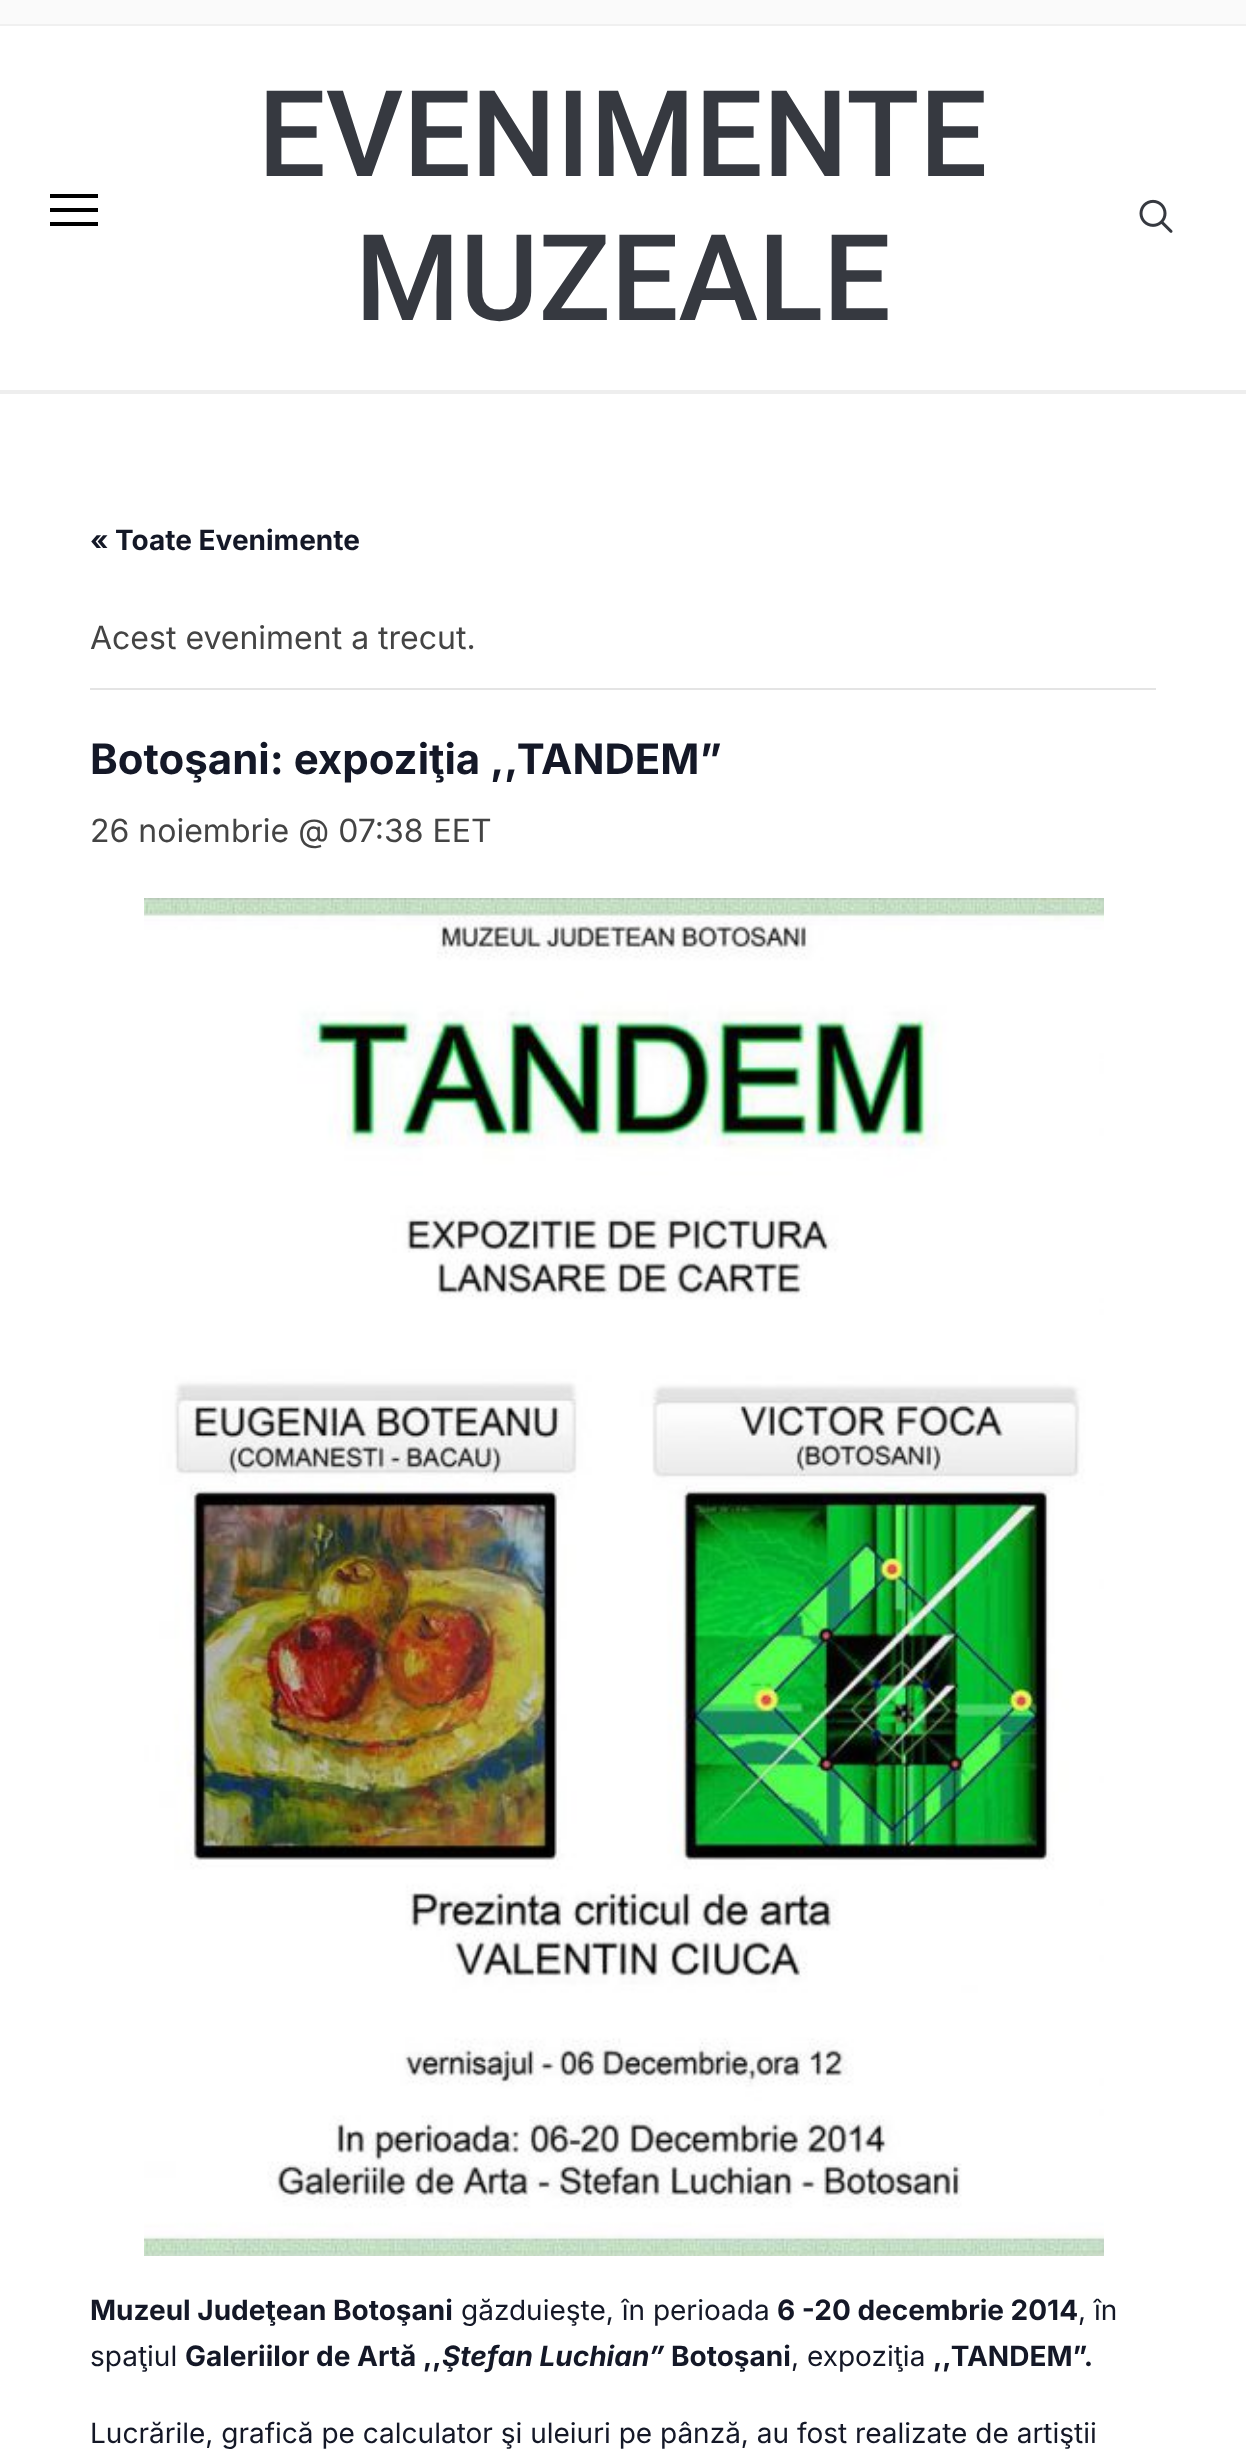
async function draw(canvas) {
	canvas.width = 1246;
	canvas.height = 2458;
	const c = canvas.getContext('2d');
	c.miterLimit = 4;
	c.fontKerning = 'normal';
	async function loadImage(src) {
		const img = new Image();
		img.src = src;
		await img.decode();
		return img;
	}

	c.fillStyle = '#fff';
	c.fillRect(0, 0, 1246, 2458);
	for (const [x, y, w, h, color] of [
		[0, 0, 1246, 24, '#fafafa'],
		[0, 24, 1246, 2, '#f0f0f0'],
		[0, 390, 1246, 4, '#eee'],
		[50, 194, 48, 4, '#000'],
		[50, 208, 48, 4, '#000'],
		[50, 222, 48, 4, '#000'],
	]) {
		c.fillStyle = color;
		c.fillRect(x, y, w, h);
	}
	c.font = '500 120px Roboto';
	c.fillStyle = '#363940';
	c.fillText('EVENIMENTE', 258, 176);
	c.fillText('MUZEALE', 355, 320);
	c.drawImage(await loadImage('img1.png'), 1139, 199, 34, 34);
	c.font = 'bold 28px Inter';
	c.fillStyle = '#141827';
	c.fillText('« Toate Evenimente', 90, 550);
	c.fillStyle = '#e4e4e4';
	c.fillRect(90, 688, 1066, 2);
	c.font = '32px Inter';
	c.fillStyle = '#444';
	c.fillText('Acest eveniment a trecut.', 90, 649);
	c.font = 'bold 42px Inter';
	c.fillStyle = '#141827';
	c.fillText('Botoşani: expoziţia ,,TANDEM”', 90, 774);
	c.font = '32px Inter';
	c.fillStyle = '#444';
	c.fillText('26 noiembrie @ 07:38 EET', 90, 842);
	c.drawImage(await loadImage('img2.png'), 144, 898, 960, 1358);
	c.font = 'bold 28px Inter';
	c.fillStyle = '#141827';
	c.fillText('Muzeul Judeţean Botoşani', 90, 2320);
	c.font = '28px Inter';
	c.fillText('găzduieşte, în perioada', 461, 2320);
	c.font = 'bold 28px Inter';
	c.fillText('6 -20 decembrie 2014', 777, 2320);
	c.font = '28px Inter';
	c.fillText(', în', 1078, 2320);
	c.fillText('spaţiul', 90, 2366);
	c.font = 'bold 28px Inter';
	c.fillText('Galeriilor de Artă ,,', 185, 2366);
	c.font = 'italic bold 28px Inter';
	c.fillText('Ştefan Luchian”', 442, 2366);
	c.font = 'bold 28px Inter';
	c.fillText('Botoşani', 671, 2366);
	c.font = '28px Inter';
	c.fillText(', expoziţia', 791, 2366);
	c.font = 'bold 28px Inter';
	c.fillText(',,TANDEM”.', 933, 2366);
	c.font = '28px Inter';
	c.fillText('Lucrările, grafică pe calculator şi uleiuri pe pânză, au fost realizate de artiştii', 90, 2443);
}

draw(document.querySelector('canvas'));
